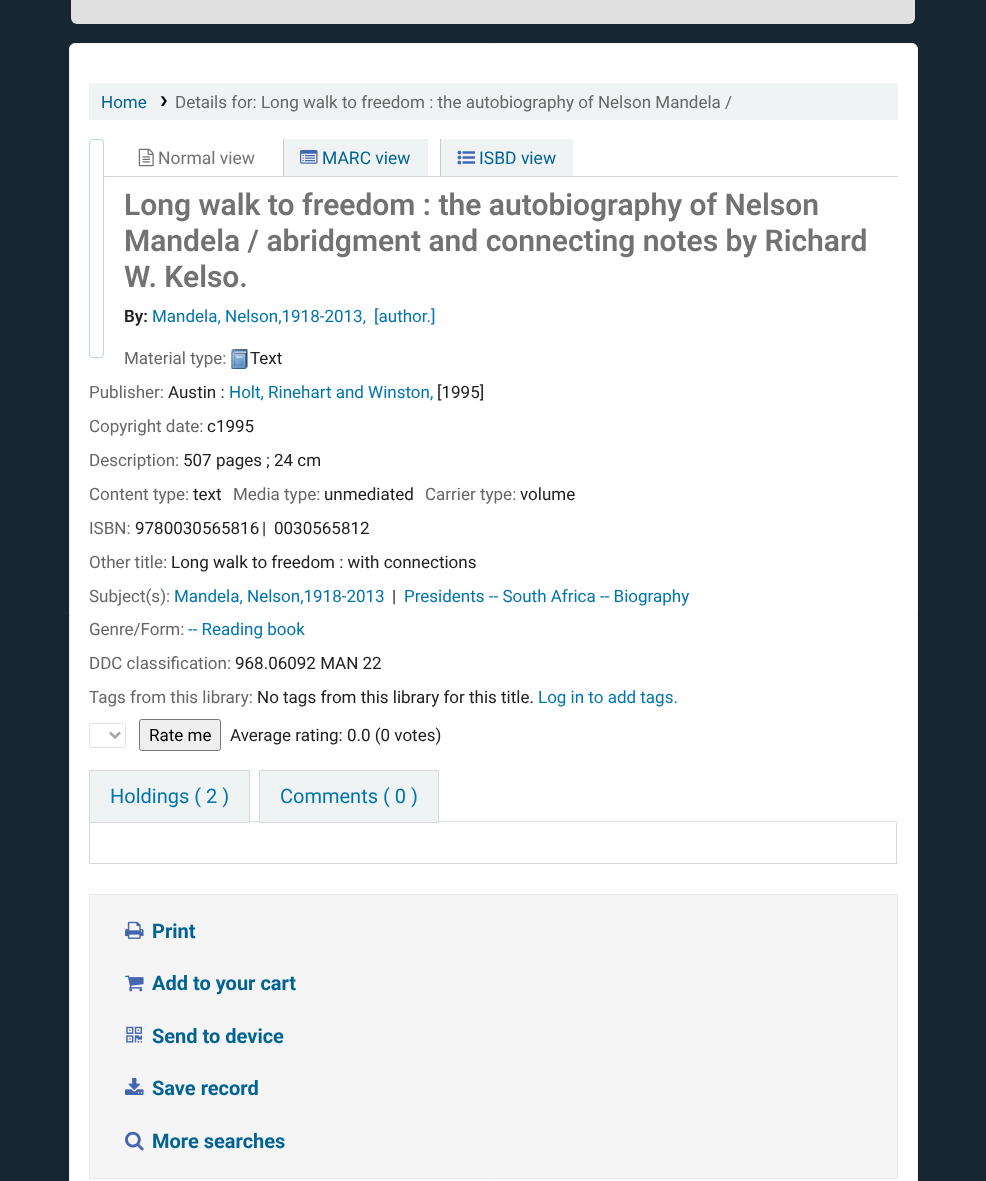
async function draw(canvas) {
	canvas.width = 986;
	canvas.height = 1181;
	const c = canvas.getContext('2d');
	c.miterLimit = 4;
	c.fontKerning = 'normal';
	async function loadImage(src) {
		const img = new Image();
		img.src = src;
		await img.decode();
		return img;
	}

	c.fillStyle = '#162731';
	c.fillRect(0, 0, 986, 1181);
	c.fillStyle = '#e0e0e0';
	c.beginPath();
	c.roundRect(71, -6, 844, 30, 6);
	c.fill();
	c.fillStyle = '#fff';
	c.beginPath();
	c.roundRect(69.5, 43.5, 848, 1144, 5.5);
	c.fill();
	c.strokeStyle = '#f0f3f3';
	c.stroke();
	c.fillStyle = '#f0f3f3';
	c.fillRect(89, 83, 809, 37);
	c.font = '17px Roboto';
	c.fillStyle = '#006394';
	c.fillText('Home', 101, 108);
	c.drawImage(await loadImage('img1.png'), 160, 96, 7, 10);
	c.fillStyle = '#666';
	c.fillText('Details for: Long walk to freedom : the autobiography of Nelson Mandela /', 175, 108);
	c.beginPath();
	c.roundRect(89.5, 139.5, 14, 218, 3.5);
	c.strokeStyle = '#b9d8d9';
	c.stroke();
	c.fillStyle = '#d6d6d6';
	c.fillRect(104, 176, 794, 1);
	c.drawImage(await loadImage('img2.png'), 138, 148, 16, 19);
	c.font = '17.5px Roboto';
	c.fillStyle = '#727272';
	c.fillText('Normal view', 158, 164);
	c.fillStyle = '#f0f3f3';
	c.fillRect(284, 139, 144, 37);
	c.fillStyle = '#c9c9c9';
	c.fillRect(283, 139, 1, 37);
	c.drawImage(await loadImage('img3.png'), 300, 150, 18, 14);
	c.fillStyle = '#006394';
	c.fillText('MARC view', 322, 164);
	c.fillStyle = '#f0f3f3';
	c.fillRect(441, 139, 132, 37);
	c.fillStyle = '#c9c9c9';
	c.fillRect(440, 139, 1, 37);
	c.drawImage(await loadImage('img4.png'), 457, 150, 18, 15);
	c.fillStyle = '#006394';
	c.fillText('ISBD view', 479, 164);
	c.font = '600 30px Roboto';
	c.fillStyle = '#727272';
	for (const [text, x, y] of [
		['Long walk to freedom : the autobiography of Nelson', 124, 215],
		['Mandela / abridgment and connecting notes by Richard', 124, 251],
		['W. Kelso.', 124, 287],
	]) {
		c.fillText(text, x, y);
	}
	c.font = '600 17px Roboto';
	c.fillStyle = '#202020';
	c.fillText('By:', 124, 322);
	c.font = '17px Roboto';
	c.fillStyle = '#0074ad';
	c.fillText('Mandela, Nelson,1918-2013,', 152, 322);
	c.fillText('[author.]', 374, 322);
	c.fillStyle = '#666';
	c.fillText('Material type:', 124, 364);
	c.drawImage(await loadImage('img5.png'), 231, 349, 17, 20);
	c.fillStyle = '#202020';
	c.fillText('Text', 250, 364);
	c.fillStyle = '#666';
	c.fillText('Publisher:', 89, 398);
	c.fillStyle = '#202020';
	c.fillText('Austin :', 168, 398);
	c.fillStyle = '#0074ad';
	c.fillText('Holt, Rinehart and Winston,', 229, 398);
	c.fillStyle = '#202020';
	c.fillText('[1995]', 437, 398);
	c.fillStyle = '#666';
	c.fillText('Copyright date:', 89, 432);
	c.fillStyle = '#202020';
	c.fillText('c1995', 207, 432);
	c.fillStyle = '#666';
	c.fillText('Description:', 89, 466);
	c.fillStyle = '#202020';
	c.fillText('507 pages ; 24 cm', 183, 466);
	c.fillStyle = '#666';
	c.fillText('Content type:', 89, 500);
	c.fillStyle = '#202020';
	c.fillText('text', 193, 500);
	c.fillStyle = '#666';
	c.fillText('Media type:', 233, 500);
	c.fillStyle = '#202020';
	c.fillText('unmediated', 324, 500);
	c.fillStyle = '#666';
	c.fillText('Carrier type:', 425, 500);
	c.fillStyle = '#202020';
	c.fillText('volume', 520, 500);
	c.fillStyle = '#666';
	c.fillText('ISBN:', 89, 534);
	c.fillStyle = '#202020';
	for (const [text, x, y] of [
		['9780030565816', 135, 534],
		['|', 262, 534],
		['0030565812', 274, 534],
	]) {
		c.fillText(text, x, y);
	}
	c.fillStyle = '#666';
	c.fillText('Other title:', 89, 568);
	c.fillStyle = '#202020';
	c.fillText('Long walk to freedom : with connections', 171, 568);
	c.fillStyle = '#666';
	c.fillText('Subject(s):', 89, 602);
	c.fillStyle = '#0074ad';
	c.fillText('Mandela, Nelson,1918-2013', 174, 602);
	c.fillStyle = '#202020';
	c.fillText('|', 392, 602);
	c.fillStyle = '#0074ad';
	c.fillText('Presidents -- South Africa -- Biography', 404, 602);
	c.fillStyle = '#666';
	c.fillText('Genre/Form:', 89, 635);
	c.fillStyle = '#0074ad';
	c.fillText('-- Reading book', 188, 635);
	c.fillStyle = '#666';
	c.fillText('DDC classification:', 89, 669);
	c.fillStyle = '#202020';
	c.fillText('968.06092 MAN 22', 235, 669);
	c.fillStyle = '#666';
	c.fillText('Tags from this library:', 89, 703);
	c.fillStyle = '#202020';
	c.fillText('No tags from this library for this title.', 257, 703);
	c.fillStyle = '#0074ad';
	c.fillText('Log in to add tags.', 538, 703);
	c.beginPath();
	c.roundRect(89.5, 723.5, 36, 24, 2);
	c.strokeStyle = '#e2e2e2';
	c.stroke();
	c.beginPath();
	c.moveTo(110, 732.5);
	c.lineTo(115, 737.5);
	c.lineTo(120, 732.5);
	c.strokeStyle = '#a6a6a6';
	c.lineWidth = 2.5;
	c.stroke();
	c.fillStyle = '#efefef';
	c.beginPath();
	c.roundRect(139.5, 719.5, 81, 31, 2);
	c.fill();
	c.strokeStyle = '#767676';
	c.lineWidth = 1;
	c.stroke();
	c.fillStyle = '#000';
	c.fillText('Rate me', 149, 741);
	c.fillStyle = '#202020';
	c.fillText('Average rating: 0.0 (0 votes)', 230, 741);
	c.fillStyle = '#dee2e6';
	c.fillRect(250, 821, 648, 1);
	c.fillStyle = '#f0f3f3';
	c.beginPath();
	c.rect(89.5, 770.5, 160, 52);
	c.fill();
	c.strokeStyle = '#d8d8d8';
	c.stroke();
	c.font = '20px Roboto';
	c.fillStyle = '#0074ad';
	c.fillText('Holdings ( 2 )', 110, 803);
	c.fillStyle = '#f0f3f3';
	c.beginPath();
	c.rect(259.5, 770.5, 179, 52);
	c.fill();
	c.stroke();
	c.fillStyle = '#0074ad';
	c.fillText('Comments ( 0 )', 280, 803);
	for (const [x, y, w, h, color] of [
		[896, 823, 1, 41, '#d8d8d8'],
		[89, 863, 809, 1, '#d8d8d8'],
		[89, 823, 1, 41, '#d8d8d8'],
	]) {
		c.fillStyle = color;
		c.fillRect(x, y, w, h);
	}
	c.fillStyle = '#f5f5f5';
	c.beginPath();
	c.rect(89.5, 894.5, 808, 284);
	c.fill();
	c.strokeStyle = '#e8e8e8';
	c.stroke();
	c.drawImage(await loadImage('img6.png'), 125, 921, 19, 18);
	c.font = 'bold 20px Roboto';
	c.fillStyle = '#006394';
	c.fillText('Print', 152, 938);
	c.drawImage(await loadImage('img7.png'), 125, 975, 19, 17);
	c.fillText('Add to your cart', 152, 990);
	c.drawImage(await loadImage('img8.png'), 126, 1026, 16, 17);
	c.fillText('Send to device', 152, 1043);
	c.drawImage(await loadImage('img9.png'), 125, 1077, 19, 18);
	c.fillText('Save record', 152, 1095);
	c.drawImage(await loadImage('img10.png'), 125, 1131, 19, 20);
	c.fillText('More searches', 152, 1148);
}

draw(document.querySelector('canvas'));
